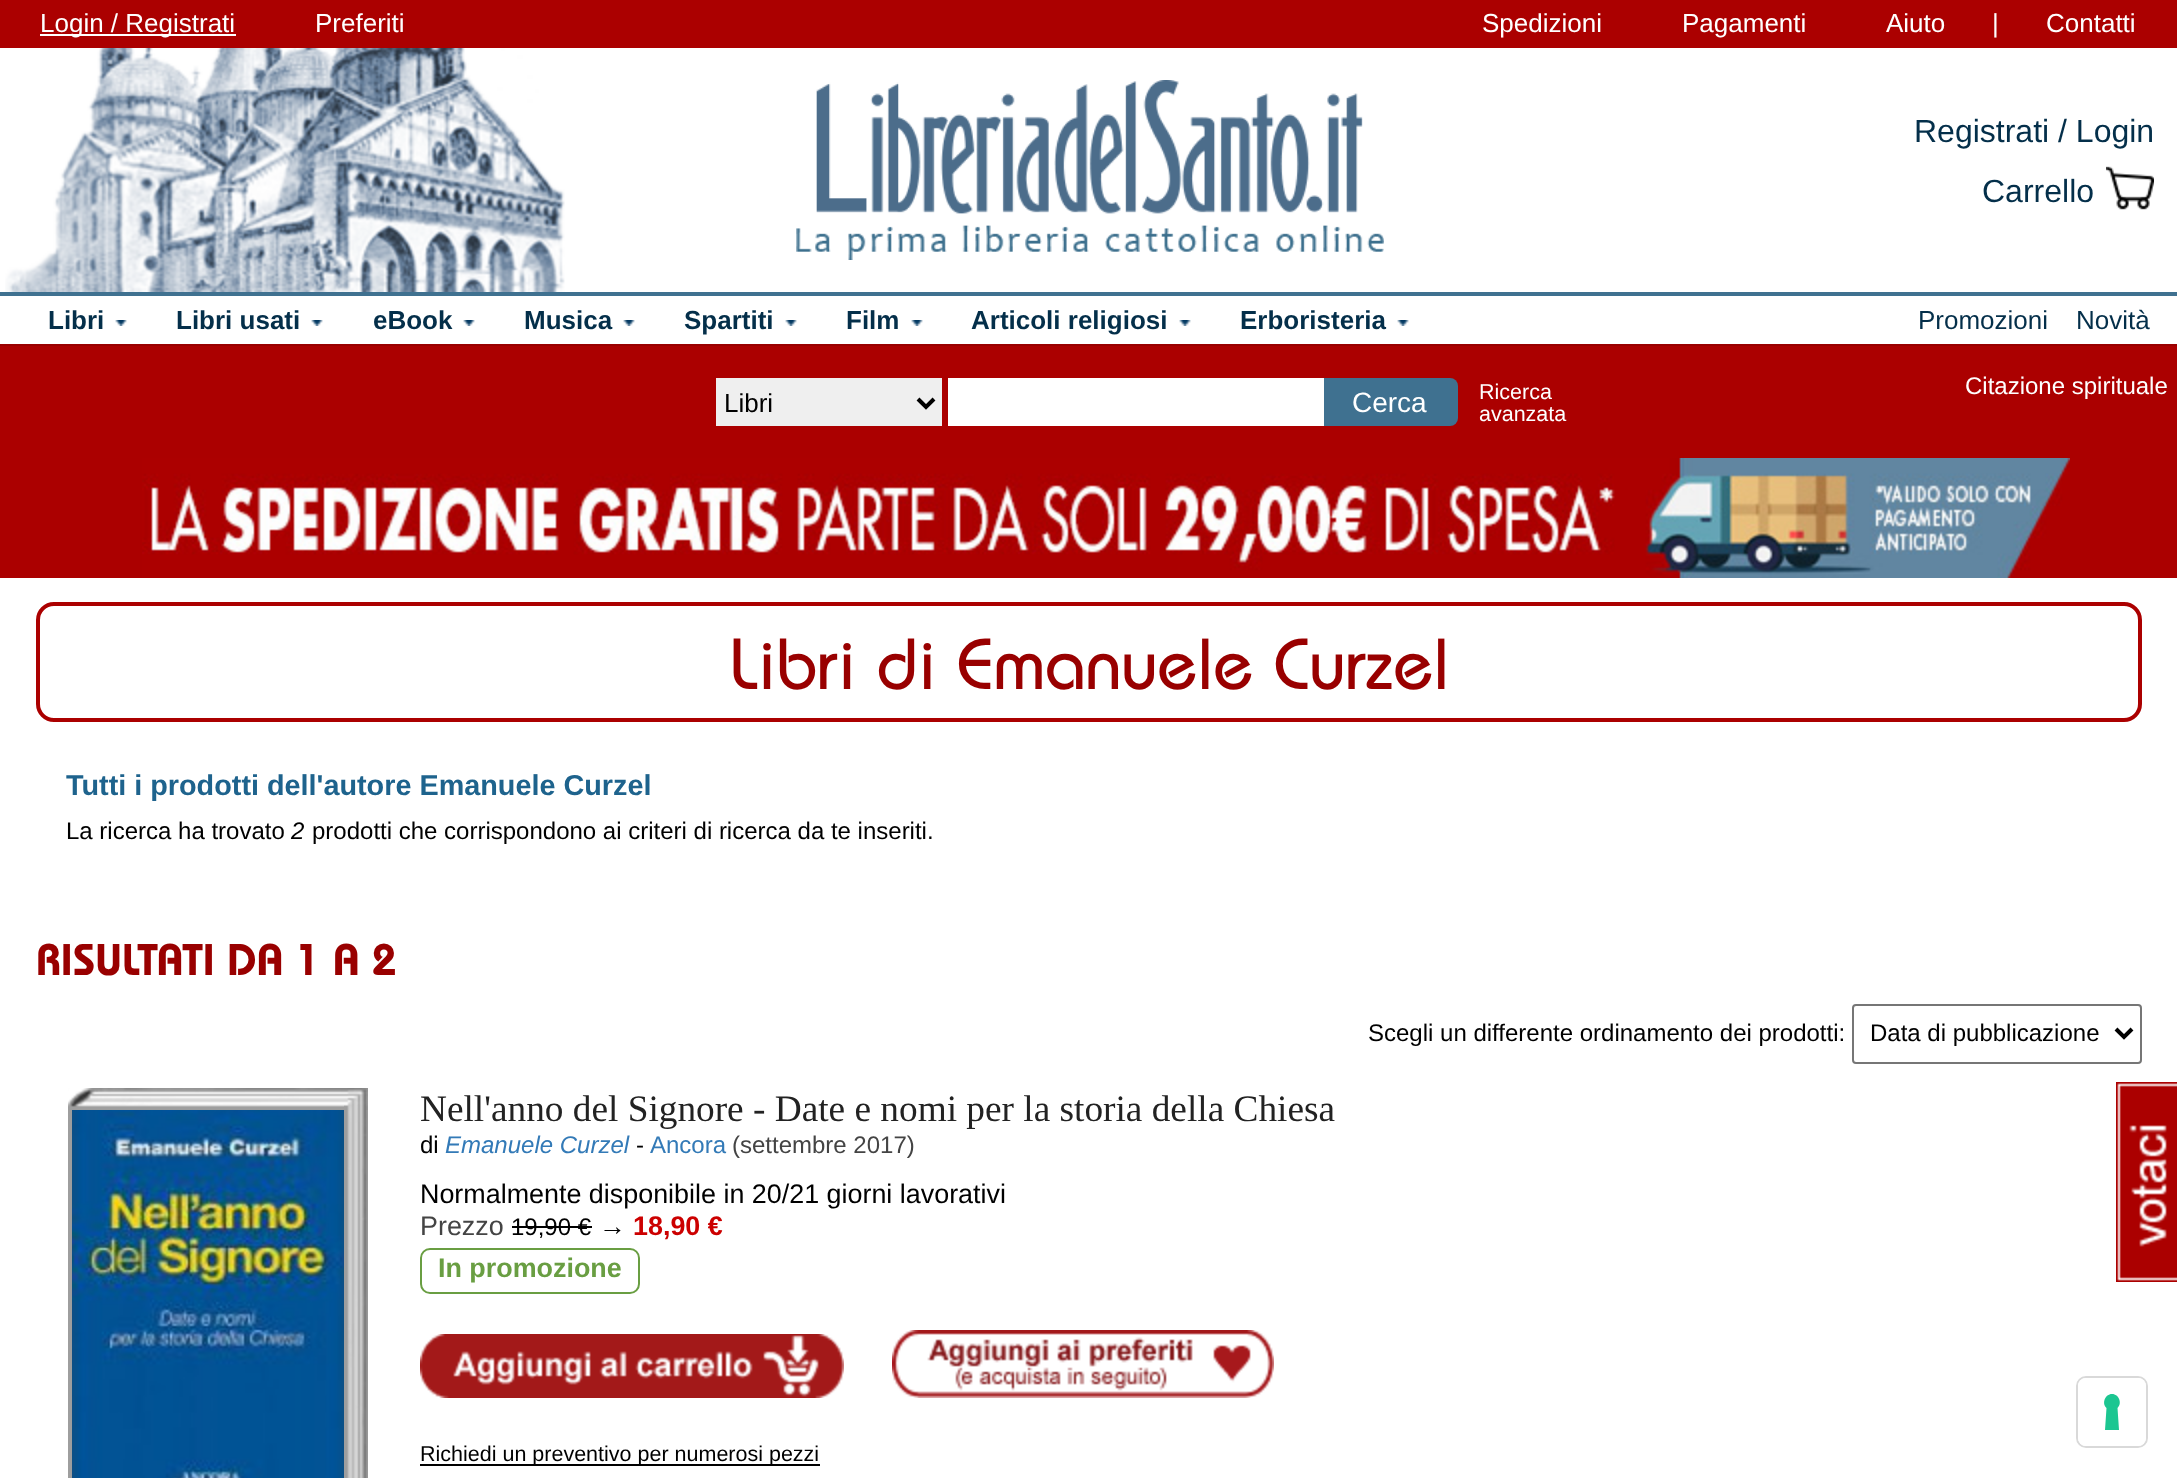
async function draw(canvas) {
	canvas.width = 2177;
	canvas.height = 1478;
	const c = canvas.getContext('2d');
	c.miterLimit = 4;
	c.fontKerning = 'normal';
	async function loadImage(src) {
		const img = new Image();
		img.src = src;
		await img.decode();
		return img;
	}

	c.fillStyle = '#fff';
	c.fillRect(0, 0, 2177, 1478);
	c.drawImage(await loadImage('img1.png'), 5, 48, 560, 244);
	c.fillStyle = '#ab0000';
	c.fillRect(0, 0, 2177, 48);
	c.fillStyle = '#fff';
	c.fillRect(40, 34, 196, 2);
	c.font = '26px Liberation Sans';
	for (const [text, x, y] of [
		['Login / Registrati', 40, 32],
		['Preferiti', 315, 32],
		['Spedizioni', 1482, 32],
		['Pagamenti', 1682, 32],
		['Aiuto', 1886, 32],
		['|', 1992, 32],
		['Contatti', 2046, 32],
	]) {
		c.fillText(text, x, y);
	}
	c.drawImage(await loadImage('img2.png'), 796, 80, 588, 180);
	c.font = '32px Liberation Sans';
	c.fillStyle = '#042f4a';
	c.fillText('Registrati / Login', 1914, 142);
	c.fillText('Carrello', 1982, 202);
	c.drawImage(await loadImage('img3.png'), 2106, 166, 48, 44);
	c.fillStyle = '#3f7190';
	c.fillRect(0, 292, 2177, 4);
	c.drawImage(await loadImage('img4.png'), 115, 320, 12, 6);
	c.font = 'bold 26px Liberation Sans';
	c.fillStyle = '#042f4a';
	c.fillText('Libri', 48, 329);
	c.drawImage(await loadImage('img4.png'), 311, 320, 12, 6);
	c.fillText('Libri usati', 176, 329);
	c.drawImage(await loadImage('img4.png'), 463, 320, 12, 6);
	c.fillText('eBook', 373, 329);
	c.drawImage(await loadImage('img4.png'), 623, 320, 12, 6);
	c.fillText('Musica', 524, 329);
	c.drawImage(await loadImage('img4.png'), 785, 320, 12, 6);
	c.fillText('Spartiti', 684, 329);
	c.drawImage(await loadImage('img4.png'), 911, 320, 12, 6);
	c.fillText('Film', 846, 329);
	c.drawImage(await loadImage('img4.png'), 1179, 320, 12, 6);
	c.fillText('Articoli religiosi', 971, 329);
	c.drawImage(await loadImage('img4.png'), 1397, 320, 12, 6);
	c.fillText('Erboristeria', 1240, 329);
	c.font = '26px Liberation Sans';
	c.fillText('Promozioni', 1918, 329);
	c.fillText('Novità', 2076, 329);
	for (const [x, y, w, h, color] of [
		[0, 346, 2177, 232, '#ab0000'],
		[0, 344, 2177, 2, '#900'],
		[716, 378, 226, 48, '#efefef'],
	]) {
		c.fillStyle = color;
		c.fillRect(x, y, w, h);
	}
	c.beginPath();
	c.moveTo(918, 399);
	c.lineTo(926, 407);
	c.lineTo(934, 399);
	c.strokeStyle = '#000';
	c.lineWidth = 4;
	c.stroke();
	c.fillStyle = '#000';
	c.fillText('Libri', 724, 412);
	c.fillStyle = '#3f7190';
	c.beginPath();
	c.roundRect(1320, 378, 138, 48, [0, 8, 8, 0]);
	c.fill();
	c.fillStyle = '#fff';
	c.fillRect(948, 378, 376, 48);
	c.font = '28px Liberation Sans';
	c.fillText('Cerca', 1352, 412);
	c.font = '21.5px Liberation Sans';
	c.fillText('Ricerca', 1479, 399);
	c.fillText('avanzata', 1479, 421);
	c.font = '24px Liberation Sans';
	c.fillText('Citazione spirituale', 1965, 394);
	c.drawImage(await loadImage('img5.png'), 142, 458, 1928, 120);
	c.beginPath();
	c.roundRect(38, 604, 2102, 116, 16);
	c.strokeStyle = '#ab0000';
	c.stroke();
	c.font = '500 72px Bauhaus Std';
	c.fillStyle = '#900';
	c.fillText('Libri di Emanuele Curzel', 729, 689);
	c.font = 'bold 28.8px Liberation Sans';
	c.fillStyle = '#1e638d';
	c.fillText('Tutti i prodotti dell\'autore Emanuele Curzel', 66, 795);
	c.font = '24px Liberation Sans';
	c.fillStyle = '#000';
	c.fillText('La ricerca ha trovato', 66, 839);
	c.font = 'italic 24px Liberation Sans';
	c.fillText('2', 291, 839);
	c.font = '24px Liberation Sans';
	c.fillText('prodotti che corrispondono ai criteri di ricerca da te inseriti.', 312, 839);
	c.font = '600 44.25px Bauhaus Std';
	c.fillStyle = '#900';
	c.fillText('RISULTATI DA 1 A 2', 36, 975);
	c.font = '24px Liberation Sans';
	c.fillStyle = '#000';
	c.fillText('Scegli un differente ordinamento dei prodotti:', 1368, 1041);
	c.beginPath();
	c.roundRect(1853, 1005, 288, 58, 3);
	c.strokeStyle = '#767676';
	c.lineWidth = 2;
	c.stroke();
	c.beginPath();
	c.moveTo(2116, 1029);
	c.lineTo(2124, 1037);
	c.lineTo(2132, 1029);
	c.strokeStyle = '#000';
	c.lineWidth = 4;
	c.stroke();
	c.fillText('Data di pubblicazione', 1870, 1041);
	c.drawImage(await loadImage('img6.png'), 68, 1088, 300, 22);
	c.fillStyle = '#9e9e9e';
	c.fillRect(68, 1110, 4, 368);
	c.drawImage(await loadImage('img7.png'), 72, 1110, 272, 368);
	c.drawImage(await loadImage('img8.png'), 344, 1088, 24, 390);
	c.font = '37.3px Liberation Serif';
	c.fillStyle = '#222';
	c.fillText('Nell\'anno del Signore - Date e nomi per la storia della Chiesa', 420, 1121);
	c.font = '24px Liberation Sans';
	c.fillStyle = '#000';
	c.fillText('di', 420, 1153);
	c.font = 'italic 24px Liberation Sans';
	c.fillStyle = '#337ab7';
	c.fillText('Emanuele Curzel', 445, 1153);
	c.font = '24px Liberation Sans';
	c.fillStyle = '#000';
	c.fillText('-', 636, 1153);
	c.fillStyle = '#337ab7';
	c.fillText('Ancora', 650, 1153);
	c.fillStyle = '#444';
	c.fillText('(settembre 2017)', 732, 1153);
	c.font = '26.9px Liberation Sans';
	c.fillStyle = '#000';
	c.fillText('Normalmente disponibile in 20/21 giorni lavorativi', 420, 1203);
	c.fillStyle = '#444';
	c.fillText('Prezzo', 420, 1235);
	c.font = '24px Liberation Sans';
	c.fillStyle = '#000';
	c.fillText('19,90 €', 511, 1235);
	c.fillRect(512, 1226, 80, 2);
	c.font = '26.9px Liberation Sans';
	c.fillText('→', 599, 1235);
	c.font = 'bold 26.9px Liberation Sans';
	c.fillStyle = '#c00';
	c.fillText('18,90 €', 633, 1235);
	c.beginPath();
	c.roundRect(421, 1249, 218, 44, 9);
	c.strokeStyle = '#699e42';
	c.lineWidth = 2;
	c.stroke();
	c.fillStyle = '#699e42';
	c.fillText('In promozione', 438, 1277);
	c.drawImage(await loadImage('img9.png'), 420, 1334, 424, 64);
	c.drawImage(await loadImage('img10.png'), 892, 1330, 382, 68);
	c.fillStyle = '#000';
	c.fillRect(420, 1464, 400, 2);
	c.font = '21.5px Liberation Sans';
	c.fillText('Richiedi un preventivo per numerosi pezzi', 420, 1461);
	c.fillStyle = '#ab0000';
	c.fillRect(2116, 1082, 61, 200);
	c.drawImage(await loadImage('img11.png'), 2117, 1083, 60, 198);
	c.beginPath();
	c.roundRect(2077, 1377, 70, 70, 9);
	c.strokeStyle = '#d9d9d9';
	c.stroke();
	c.fillStyle = '#fff';
	c.beginPath();
	c.roundRect(2078, 1378, 68, 68, 8);
	c.fill();
	c.fillStyle = '#1cc691';
	c.beginPath();
	c.moveTo(2112, 1394);
	c.bezierCurveTo(2119, 1394, 2122.5, 1403.5, 2117.5, 1408);
	c.lineTo(2119, 1430);
	c.lineTo(2105, 1430);
	c.lineTo(2106.5, 1408);
	c.bezierCurveTo(2101.5, 1403.5, 2105, 1394, 2112, 1394);
	c.closePath();
	c.fill('evenodd');
}

draw(document.querySelector('canvas'));
